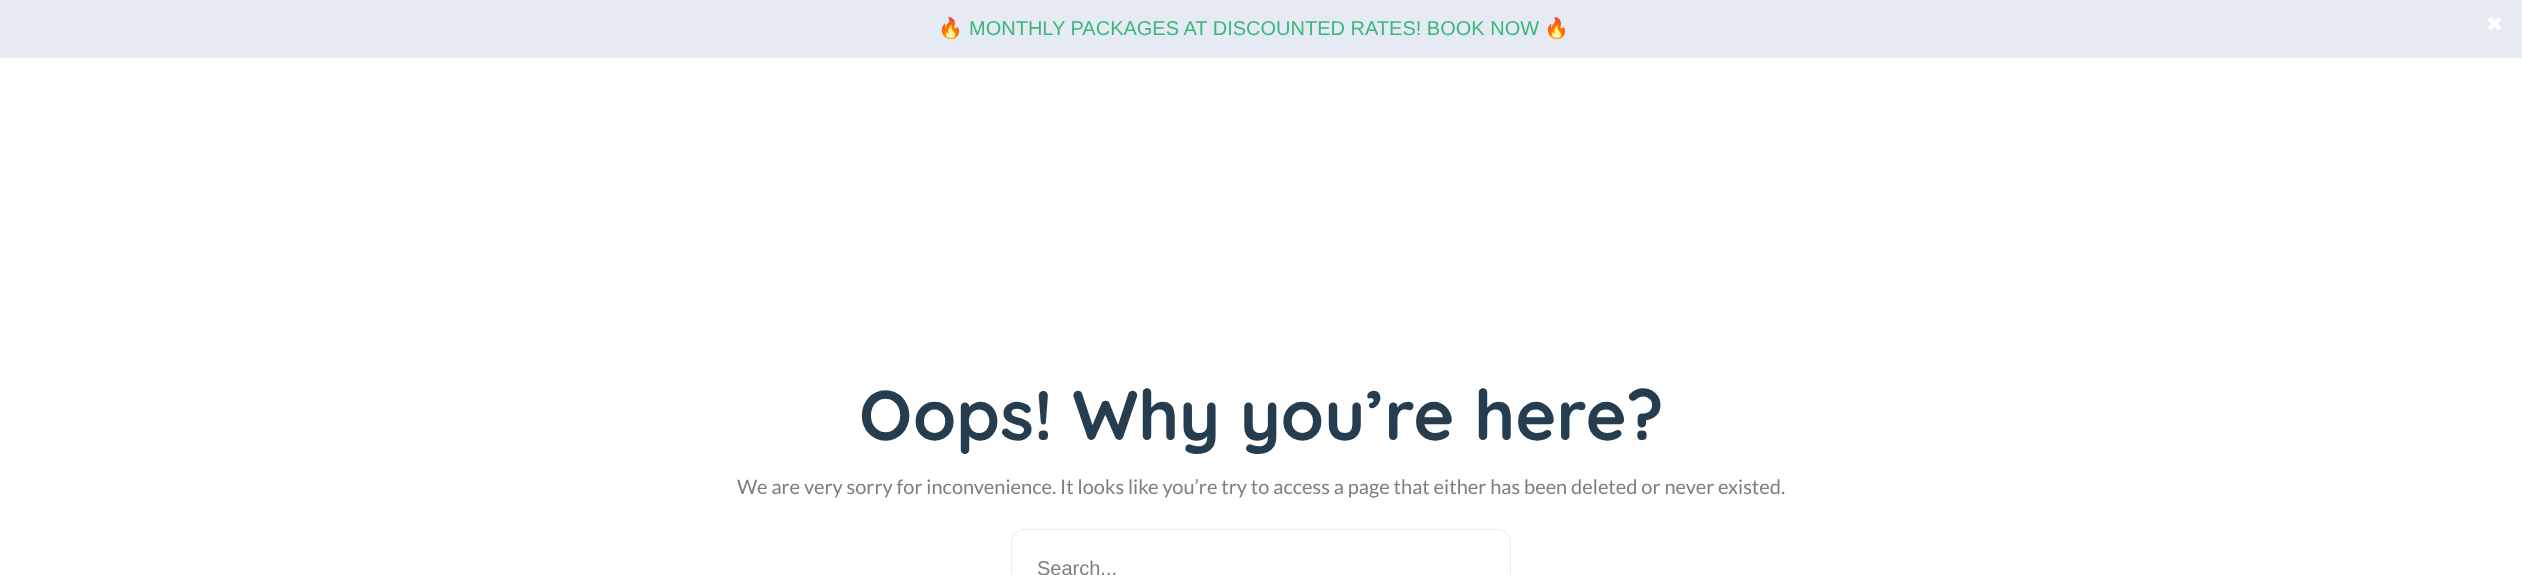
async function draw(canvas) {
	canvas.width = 2522;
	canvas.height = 575;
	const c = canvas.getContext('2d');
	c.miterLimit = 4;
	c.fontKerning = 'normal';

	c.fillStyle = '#fff';
	c.fillRect(0, 0, 2522, 575);
	c.fillStyle = '#e6eaf2';
	c.fillRect(0, 0, 2522, 58);
	c.font = '20px Noto Color Emoji';
	c.fillStyle = '#3bb77e';
	c.fillText('🔥', 938, 35);
	c.font = '20px Liberation Sans';
	c.fillText('MONTHLY PACKAGES AT DISCOUNTED RATES! BOOK NOW', 969, 35);
	c.font = '20px Noto Color Emoji';
	c.fillText('🔥', 1544, 35);
	c.font = '20px DejaVu Sans';
	c.fillStyle = '#fff';
	c.fillText('✖', 2486, 31);
	c.font = '300 70px Quicksand';
	c.fillStyle = '#253d4e';
	c.fillText('Oops! Why you’re here?', 859, 440);
	c.font = '20px Lato';
	c.fillStyle = '#7e7e7e';
	c.fillText('We are very sorry for inconvenience. It looks like you’re try to access a page that either has been deleted or never existed.', 737, 494);
	c.beginPath();
	c.roundRect(1011.5, 529.5, 499, 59, 12.5);
	c.strokeStyle = '#ececec';
	c.stroke();
	c.font = '20px Liberation Sans';
	c.fillText('Search...', 1037, 575);
}

draw(document.querySelector('canvas'));
